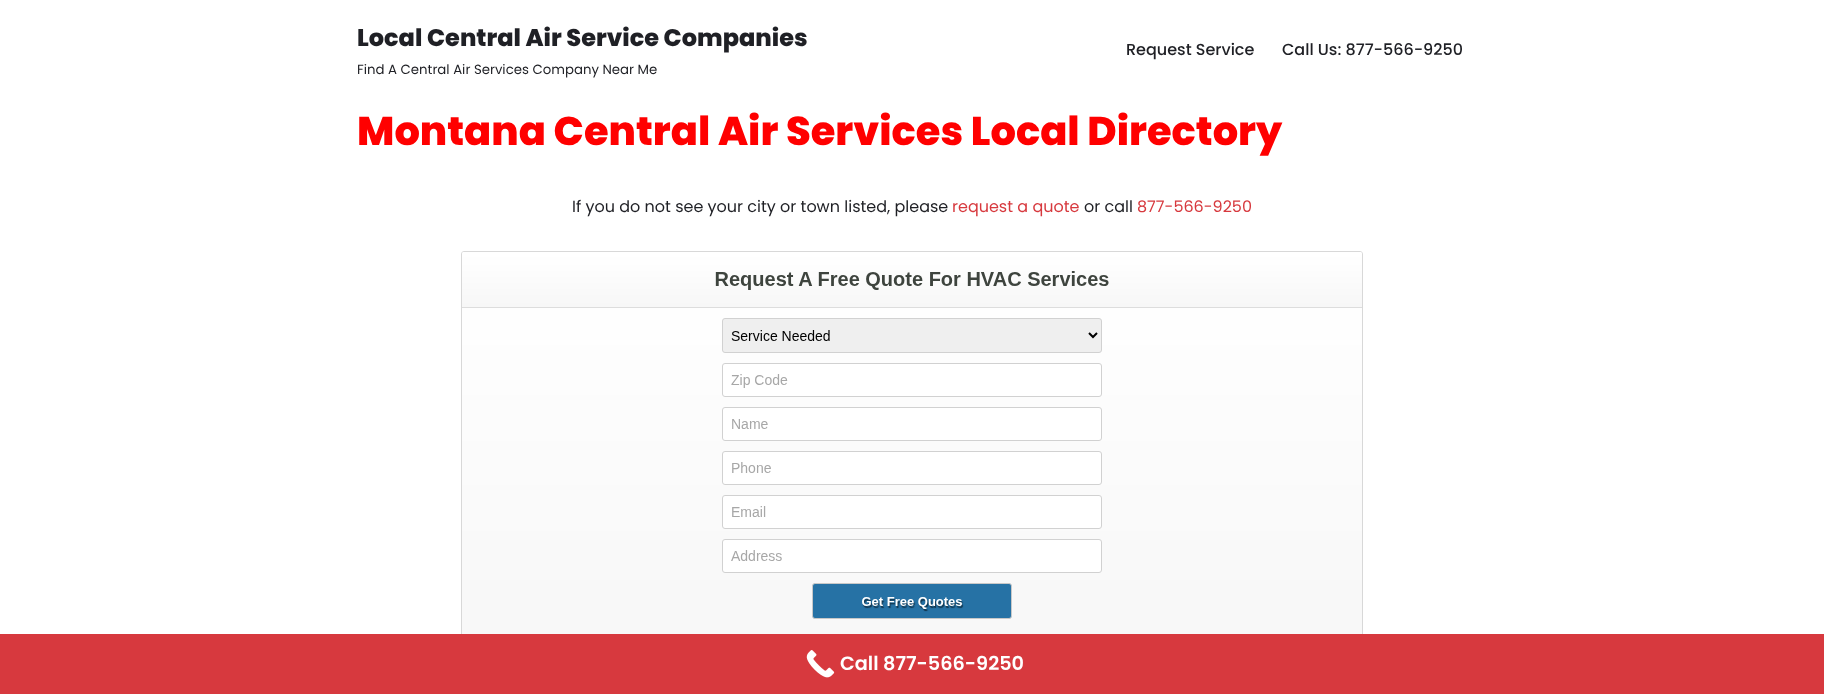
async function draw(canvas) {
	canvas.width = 1824;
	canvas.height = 694;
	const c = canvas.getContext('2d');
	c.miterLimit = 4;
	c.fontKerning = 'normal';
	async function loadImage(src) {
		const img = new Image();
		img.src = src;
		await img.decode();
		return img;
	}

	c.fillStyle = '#fff';
	c.fillRect(0, 0, 1824, 694);
	c.font = '800 24px Poppins';
	c.fillStyle = '#1f2025';
	c.fillText('Local Central Air Service Companies', 357, 46);
	c.font = '13.3px Poppins';
	c.fillText('Find A Central Air Services Company Near Me', 357, 74);
	c.font = '500 16px Poppins';
	c.fillText('Request Service', 1126, 55);
	c.fillText('Call Us: 877-566-9250', 1282, 55);
	c.font = '800 40px Poppins';
	c.fillStyle = '#f00';
	c.fillText('Montana Central Air Services Local Directory', 357, 145);
	c.font = '16px Poppins';
	c.fillStyle = '#1f2025';
	c.fillText('If you do not see your city or town listed, please', 572, 212);
	c.fillStyle = '#d7393e';
	c.fillText('request a quote', 952, 212);
	c.fillStyle = '#1f2025';
	c.fillText('or call', 1084, 212);
	c.fillStyle = '#d7393e';
	c.fillText('877-566-9250', 1137, 212);
	c.drawImage(await loadImage('img1.png'), 461, 251, 902, 383);
	c.fillRect(0, 634, 1824, 60);
	c.drawImage(await loadImage('img2.png'), 806, 650, 29, 28);
	c.font = '600 19.25px Poppins';
	c.fillStyle = '#fff';
	c.fillText('Call 877-566-9250', 840, 670);
}

draw(document.querySelector('canvas'));
